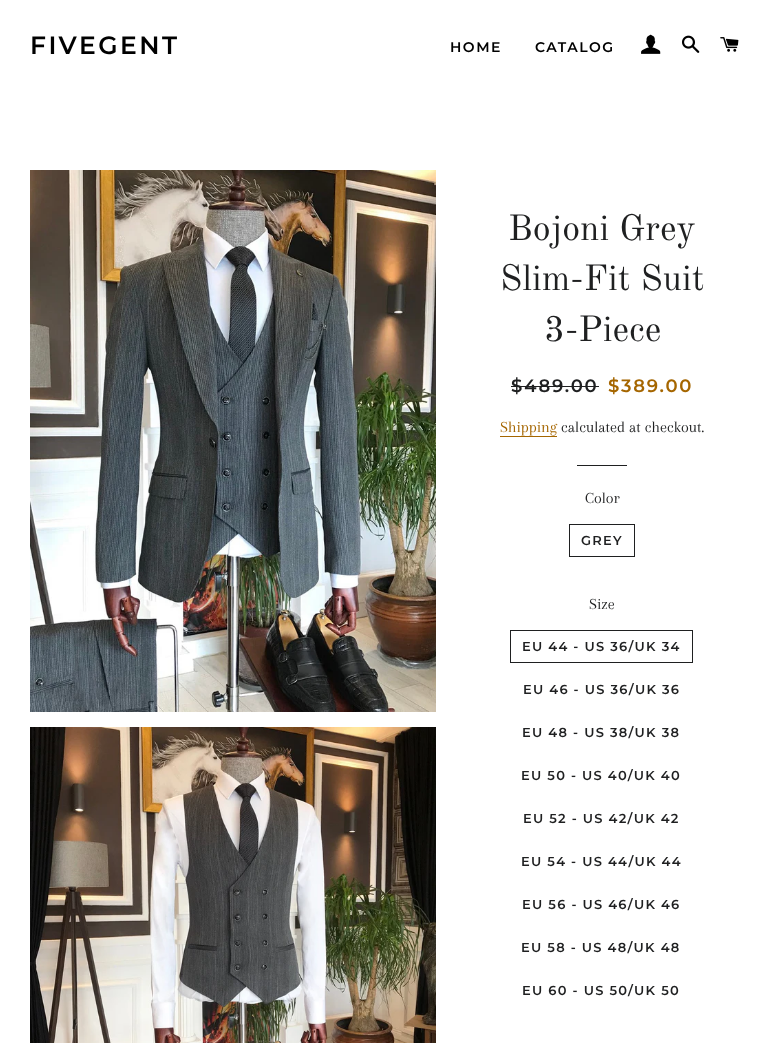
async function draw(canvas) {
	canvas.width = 778;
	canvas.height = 1043;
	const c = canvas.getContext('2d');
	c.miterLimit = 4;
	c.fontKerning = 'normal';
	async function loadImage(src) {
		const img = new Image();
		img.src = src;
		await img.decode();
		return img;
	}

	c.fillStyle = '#fff';
	c.fillRect(0, 0, 778, 1043);
	c.letterSpacing = '2.5px';
	c.font = '600 25px Montserrat';
	c.fillStyle = '#000';
	c.fillText('FIVEGENT', 30, 54);
	c.letterSpacing = '1.5px';
	c.font = '600 14px Montserrat';
	c.fillText('HOME', 450, 52);
	c.fillText('CATALOG', 535, 52);
	c.drawImage(await loadImage('img1.png'), 641, 34, 20, 20);
	c.drawImage(await loadImage('img2.png'), 682, 35, 18, 18);
	c.drawImage(await loadImage('img3.png'), 720, 37, 19, 15);
	c.drawImage(await loadImage('img4.png'), 30, 170, 406, 542);
	c.drawImage(await loadImage('img5.png'), 30, 727, 406, 316);
	c.letterSpacing = '0px';
	c.font = '36px Old Standard TT';
	c.fillStyle = '#1f2021';
	for (const [text, x, y] of [
		['Bojoni Grey', 508, 240],
		['Slim-Fit Suit', 500, 290],
		['3-Piece', 544, 341],
	]) {
		c.fillText(text, x, y);
	}
	c.letterSpacing = '1.75px';
	c.font = '600 18px Montserrat';
	c.fillText('$489.00', 511, 392);
	c.fillRect(511, 386, 88, 1);
	c.fillStyle = '#a56600';
	c.fillText('$389.00', 608, 392);
	c.letterSpacing = '0px';
	c.font = '16px Arapey';
	c.fillText('Shipping', 500, 432);
	c.fillRect(500, 436, 57, 1);
	c.fillStyle = '#1f2021';
	c.fillText('calculated at checkout.', 561, 432);
	c.fillRect(577, 465, 50, 1);
	c.fillText('Color', 585, 503);
	c.strokeStyle = '#1f2021';
	c.strokeRect(569.5, 524.5, 65, 32);
	c.letterSpacing = '1.25px';
	c.font = '600 13px Montserrat';
	c.fillText('GREY', 581, 545);
	c.letterSpacing = '0px';
	c.font = '16px Arapey';
	c.fillText('Size', 589, 609);
	c.strokeRect(510.5, 630.5, 182, 32);
	c.letterSpacing = '1.25px';
	c.font = '600 13px Montserrat';
	for (const [text, x, y] of [
		['EU 44 - US 36/UK 34', 522, 651],
		['EU 46 - US 36/UK 36', 523, 694],
		['EU 48 - US 38/UK 38', 522, 737],
		['EU 50 - US 40/UK 40', 521, 780],
		['EU 52 - US 42/UK 42', 523, 823],
		['EU 54 - US 44/UK 44', 521, 866],
		['EU 56 - US 46/UK 46', 522, 909],
		['EU 58 - US 48/UK 48', 521, 952],
		['EU 60 - US 50/UK 50', 522, 995],
	]) {
		c.fillText(text, x, y);
	}
}

draw(document.querySelector('canvas'));
